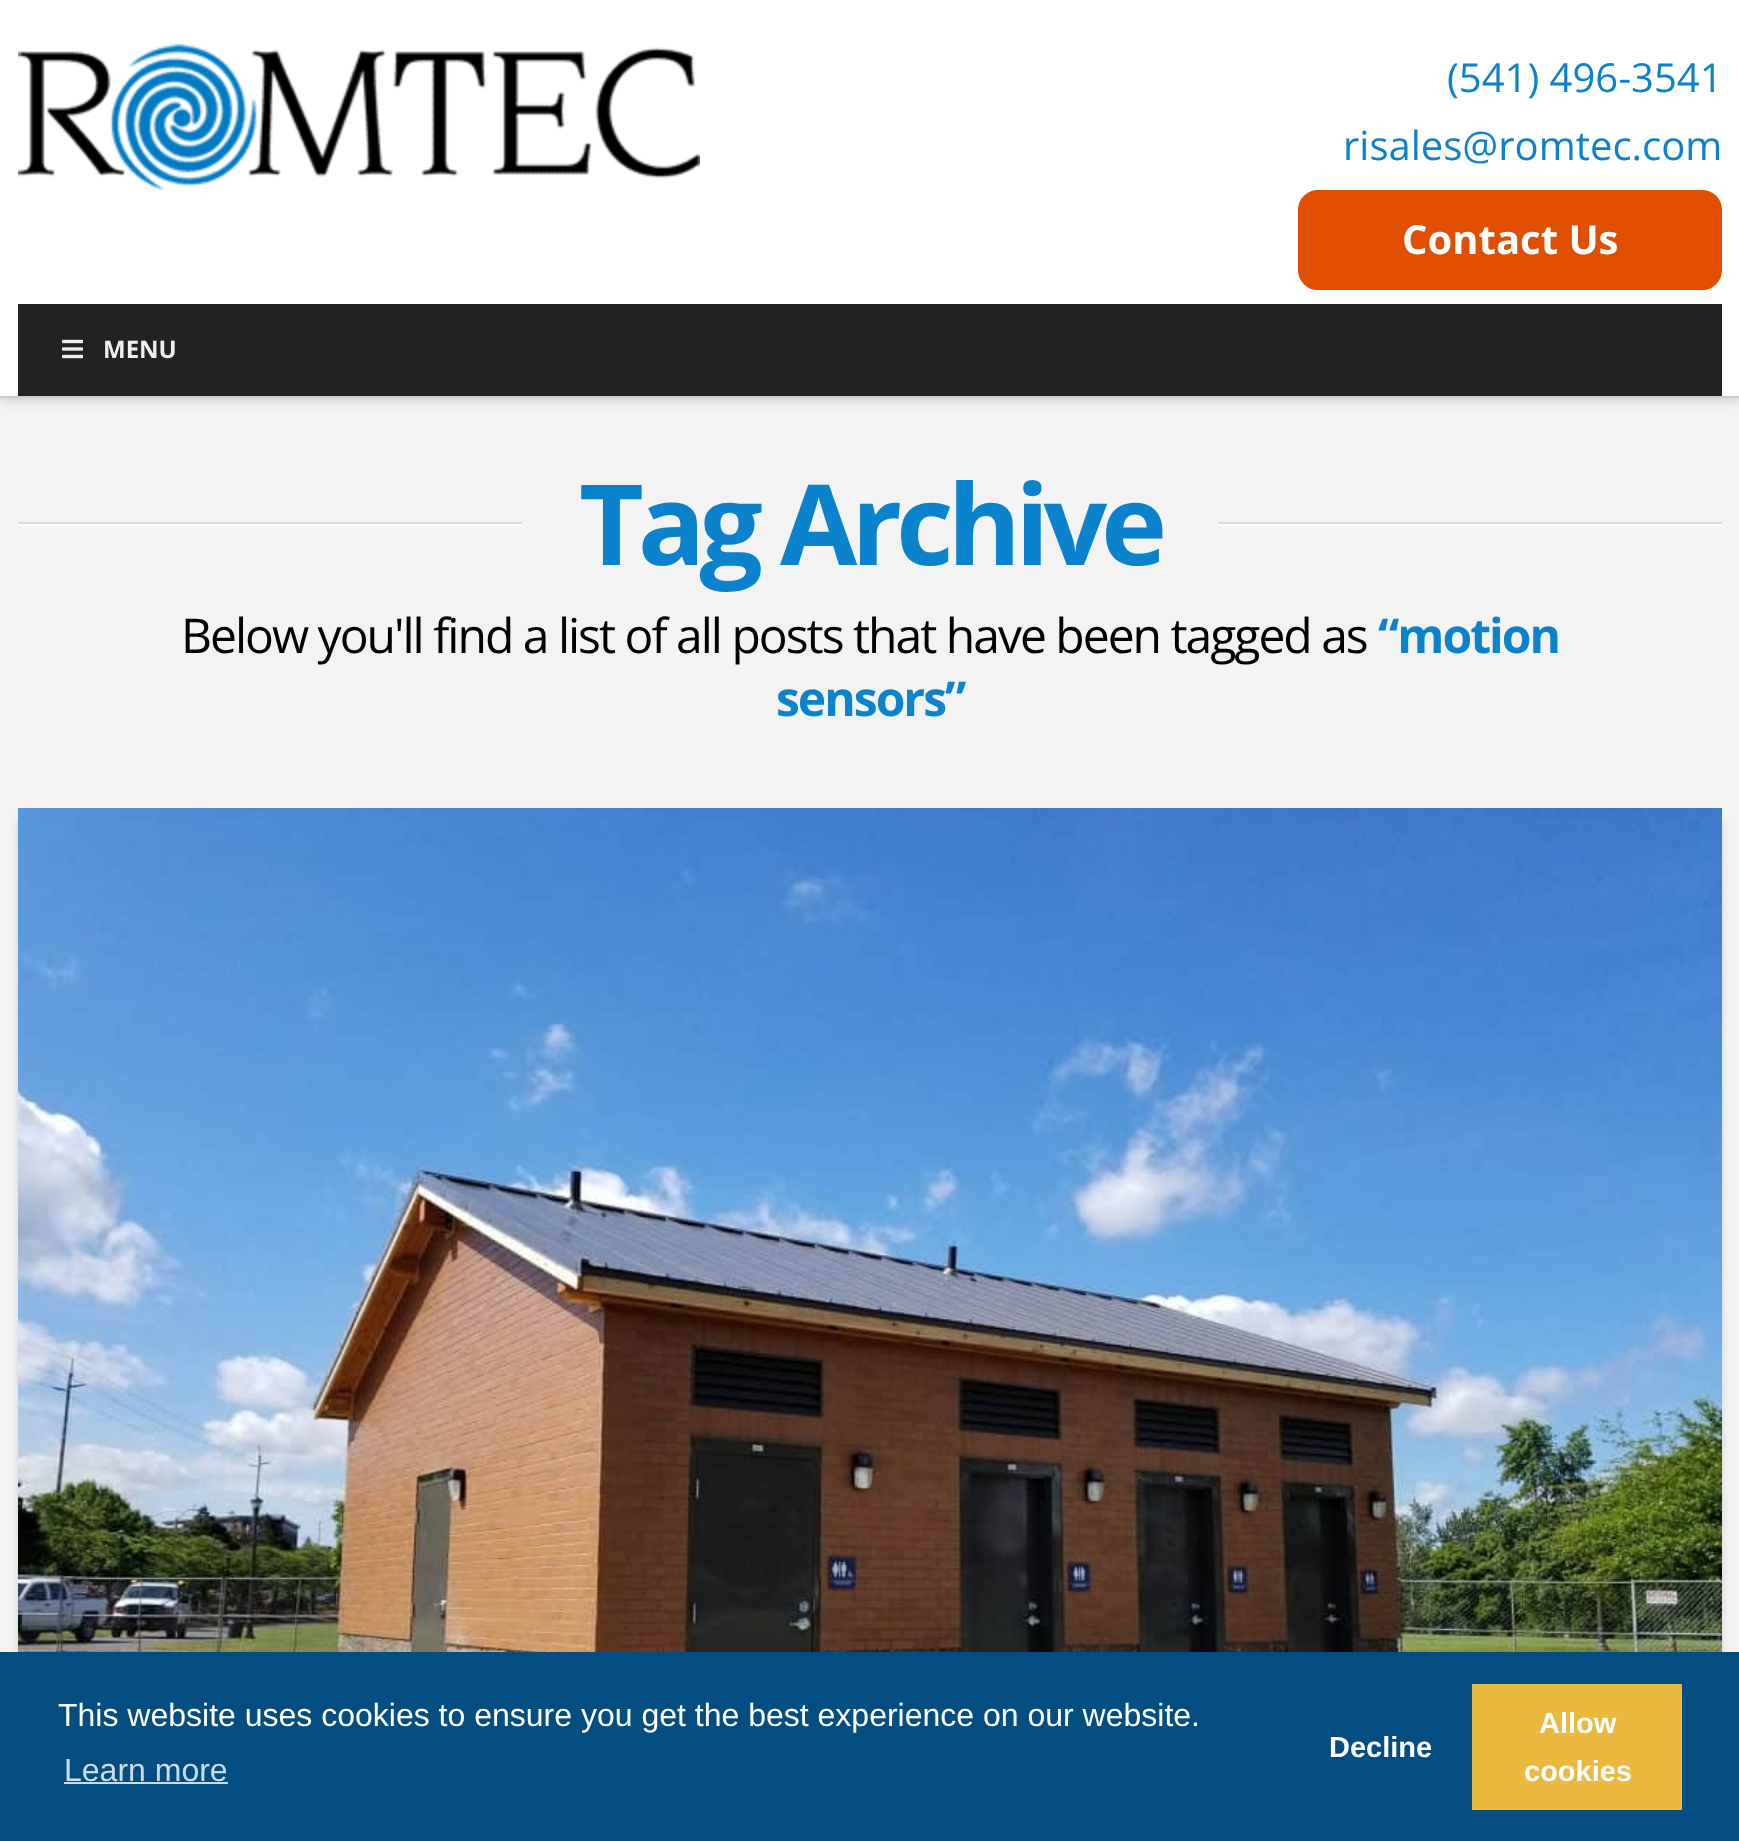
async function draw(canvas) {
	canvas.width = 1739;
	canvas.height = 1841;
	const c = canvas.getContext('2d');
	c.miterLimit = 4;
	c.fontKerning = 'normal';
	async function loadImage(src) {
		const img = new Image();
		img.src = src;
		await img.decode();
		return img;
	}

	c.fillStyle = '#f3f3f3';
	c.fillRect(0, 0, 1739, 1841);
	c.fillStyle = '#00000021';
	c.filter = 'blur(5px)';
	c.beginPath();
	c.rect(0, 4, 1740, 398);
	c.fill();
	c.filter = 'none';
	c.fillStyle = '#fff';
	c.fillRect(0, 0, 1739, 396);
	c.fillStyle = '#ccc';
	c.fillRect(0, 396, 1739, 2);
	c.drawImage(await loadImage('img1.png'), 18, 44, 682, 146);
	c.font = '40px Open Sans';
	c.fillStyle = '#0b82cc';
	c.fillText('(541) 496-3541', 1447, 92);
	c.fillText('risales@romtec.com', 1343, 160);
	c.fillStyle = '#e04e00';
	c.beginPath();
	c.roundRect(1300, 192, 420, 96, 18);
	c.fill();
	c.strokeStyle = '#e04e00';
	c.lineWidth = 4;
	c.stroke();
	c.font = 'bold 40px Open Sans';
	c.fillStyle = '#fff';
	c.fillText('Contact Us', 1402, 254);
	c.fillStyle = '#222';
	c.fillRect(18, 304, 1704, 92);
	c.drawImage(await loadImage('img2.png'), 62, 339, 21, 20);
	c.font = 'bold 24px Open Sans';
	c.fillStyle = '#eee';
	c.fillText('MENU', 103, 358);
	c.fillStyle = '#fdfdfd';
	c.fillRect(18, 524, 504, 2);
	c.fillStyle = '#dbdbdb';
	c.fillRect(18, 522, 504, 2);
	c.letterSpacing = '-6px';
	c.font = 'bold 112px Open Sans';
	c.fillStyle = '#0b82cc';
	c.fillText('Tag Archive', 579, 565);
	c.fillStyle = '#fdfdfd';
	c.fillRect(1218, 524, 504, 2);
	c.fillStyle = '#dbdbdb';
	c.fillRect(1218, 522, 504, 2);
	c.letterSpacing = '-2px';
	c.font = '48px Open Sans';
	c.fillStyle = '#000';
	c.fillText('Below you\'ll find a list of all posts that have been tagged as', 181, 653);
	c.font = 'bold 48px Open Sans';
	c.fillStyle = '#0b82cc';
	c.fillText('“motion', 1378, 653);
	c.fillText('sensors”', 776, 716);
	c.fillStyle = '#00000021';
	c.filter = 'blur(4px)';
	c.beginPath();
	c.rect(18, 820, 1688, 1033);
	c.fill();
	c.filter = 'none';
	c.filter = 'blur(4px)';
	c.beginPath();
	c.rect(34, 820, 1688, 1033);
	c.fill();
	c.filter = 'none';
	c.drawImage(await loadImage('img3.png'), 18, 808, 1704, 844);
	c.fillStyle = '#044d80';
	c.fillRect(0, 1652, 1739, 189);
	c.letterSpacing = '0px';
	c.font = '32px Liberation Sans';
	c.fillStyle = '#fff';
	c.fillText('This website uses cookies to ensure you get the best experience on our website.', 58, 1726);
	c.fillStyle = '#cddbe6';
	c.fillText('Learn more', 64, 1781);
	c.fillRect(64, 1782, 164, 2);
	c.font = 'bold 29px Liberation Sans';
	c.fillStyle = '#fff';
	c.fillText('Decline', 1329, 1757);
	c.fillStyle = '#ecb940';
	c.fillRect(1472, 1684, 210, 126);
	c.fillStyle = '#fff';
	c.fillText('Allow', 1539, 1733);
	c.fillText('cookies', 1524, 1781);
}

draw(document.querySelector('canvas'));
